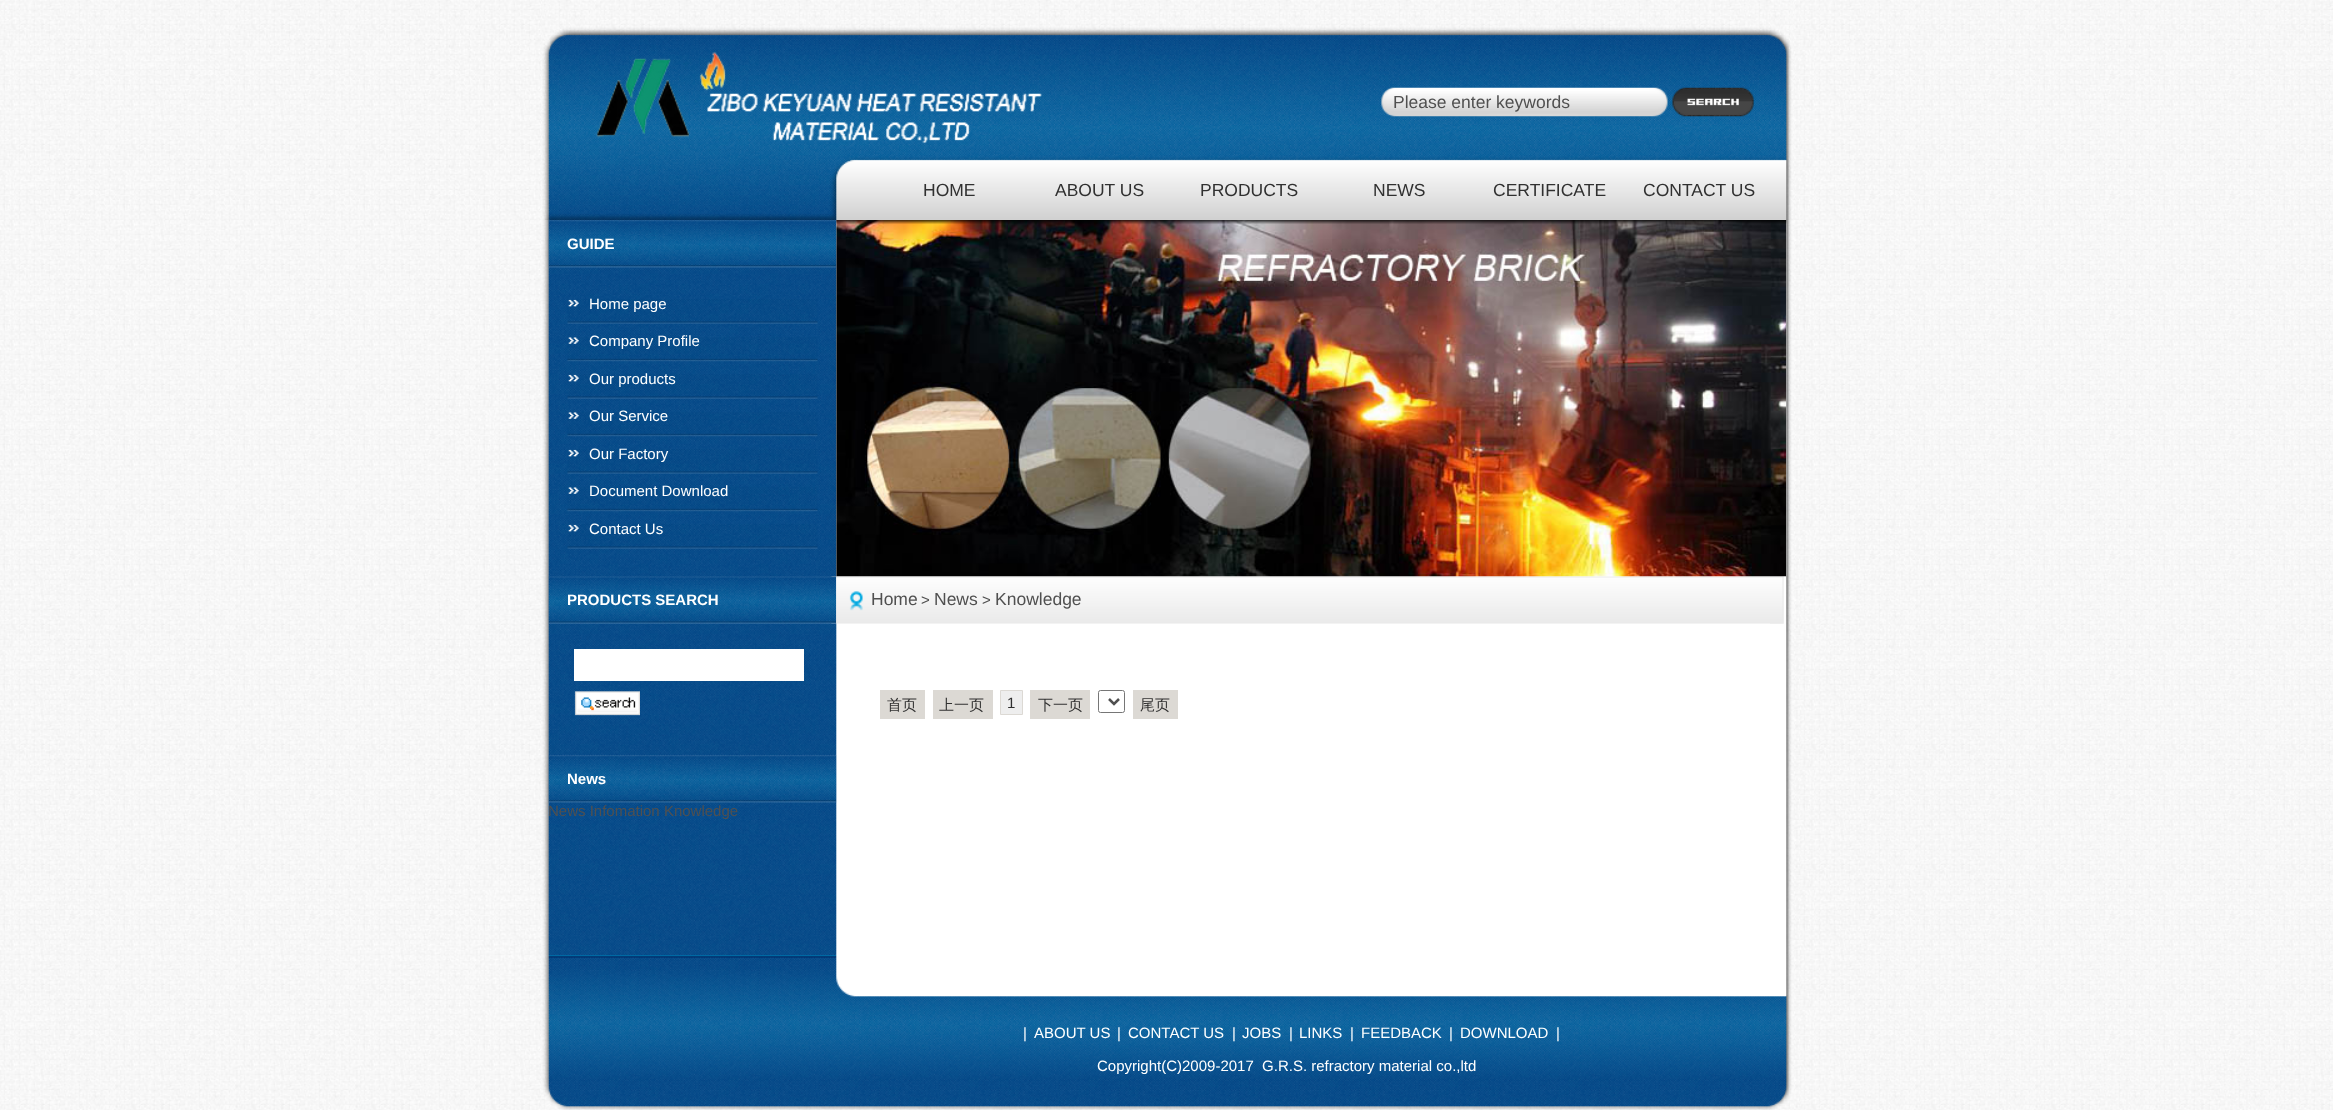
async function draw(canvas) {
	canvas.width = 2333;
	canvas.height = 1110;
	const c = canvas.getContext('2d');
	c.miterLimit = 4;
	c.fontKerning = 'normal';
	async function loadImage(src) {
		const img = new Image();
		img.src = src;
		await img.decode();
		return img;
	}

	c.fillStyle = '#fff';
	c.fillRect(0, 0, 2333, 1110);
	c.drawImage(await loadImage('img1.png'), 0, 0, 2333, 1110);
	c.drawImage(await loadImage('img2.png'), 541, 0, 1253, 1110);
	c.drawImage(await loadImage('img3.png'), 542, 0, 1251, 220);
	c.drawImage(await loadImage('img4.png'), 596, 52, 446, 92);
	c.drawImage(await loadImage('img5.png'), 1381, 87, 287, 30);
	c.font = '17.5px Liberation Sans';
	c.fillStyle = '#505050';
	c.fillText('Please enter keywords', 1393, 108);
	c.drawImage(await loadImage('img6.png'), 1672, 87, 82, 30);
	c.fillStyle = '#303030';
	for (const [text, x, y] of [
		['HOME', 923, 196],
		['ABOUT US', 1055, 196],
		['PRODUCTS', 1200, 196],
		['NEWS', 1373, 196],
		['CERTIFICATE', 1493, 196],
		['CONTACT US', 1643, 196],
	]) {
		c.fillText(text, x, y);
	}
	c.drawImage(await loadImage('img19.png'), 831, 576, 953, 48);
	c.drawImage(await loadImage('img17.png'), 548, 576, 289, 48);
	c.drawImage(await loadImage('img20.png'), 1770, 576, 14, 48);
	c.drawImage(await loadImage('img15.png'), 836, 220, 951, 357);
	c.drawImage(await loadImage('img16.png'), 836, 220, 951, 4);
	c.drawImage(await loadImage('img7.png'), 548, 220, 289, 48);
	c.font = 'bold 15px Liberation Sans';
	c.fillStyle = '#fff';
	c.fillText('GUIDE', 567, 249);
	c.drawImage(await loadImage('img8.png'), 567, 299, 251, 25);
	c.font = '15px Liberation Sans';
	c.fillText('Home page', 589, 309);
	c.drawImage(await loadImage('img9.png'), 567, 337, 251, 25);
	c.fillText('Company Profile', 589, 346);
	c.drawImage(await loadImage('img10.png'), 567, 374, 251, 25);
	c.fillText('Our products', 589, 384);
	c.drawImage(await loadImage('img11.png'), 567, 412, 251, 25);
	c.fillText('Our Service', 589, 421);
	c.drawImage(await loadImage('img12.png'), 567, 449, 251, 25);
	c.fillText('Our Factory', 589, 459);
	c.drawImage(await loadImage('img13.png'), 567, 487, 251, 25);
	c.fillText('Document Download', 589, 496);
	c.drawImage(await loadImage('img14.png'), 567, 524, 251, 25);
	c.fillText('Contact Us', 589, 534);
	c.font = 'bold 15px Liberation Sans';
	c.fillText('PRODUCTS SEARCH', 567, 605);
	c.fillRect(574, 649, 230, 32);
	c.drawImage(await loadImage('img18.png'), 574, 691, 66, 25);
	c.font = '17.5px Liberation Sans';
	c.fillStyle = '#505050';
	c.fillText('Home', 871, 605);
	c.font = '15px Liberation Sans';
	c.fillText('>', 921, 605);
	c.font = '17.5px Liberation Sans';
	c.fillText('News', 934, 605);
	c.font = '15px Liberation Sans';
	c.fillText('>', 982, 605);
	c.font = '17.5px Liberation Sans';
	c.fillText('Knowledge', 995, 605);
	c.fillStyle = '#dcd9d4';
	c.fillRect(880, 690, 45, 29);
	c.font = '500 15px WenQuanYi Zen Hei';
	c.fillStyle = '#303030';
	c.fillText('首页', 887, 710);
	c.fillStyle = '#dcd9d4';
	c.fillRect(933, 690, 60, 29);
	c.fillStyle = '#303030';
	c.fillText('上一页', 939, 710);
	c.fillStyle = '#eee';
	c.beginPath();
	c.rect(1000.5, 690.5, 22, 24);
	c.fill();
	c.strokeStyle = '#dcd9d4';
	c.stroke();
	c.font = '15px Liberation Sans';
	c.fillStyle = '#303030';
	c.fillText('1', 1007, 708);
	c.fillStyle = '#dcd9d4';
	c.fillRect(1030, 690, 60, 29);
	c.font = '500 15px WenQuanYi Zen Hei';
	c.fillStyle = '#303030';
	c.fillText('下一页', 1038, 710);
	c.beginPath();
	c.roundRect(1098.5, 690.5, 26, 22, 2);
	c.strokeStyle = '#767676';
	c.stroke();
	c.beginPath();
	c.moveTo(1109, 699);
	c.lineTo(1114, 704);
	c.lineTo(1119, 699);
	c.strokeStyle = '#505050';
	c.lineWidth = 2.5;
	c.stroke();
	c.fillStyle = '#dcd9d4';
	c.fillRect(1133, 690, 45, 29);
	c.fillStyle = '#303030';
	c.fillText('尾页', 1140, 710);
	c.drawImage(await loadImage('img21.png'), 548, 755, 289, 48);
	c.font = 'bold 15px Liberation Sans';
	c.fillStyle = '#fff';
	c.fillText('News', 567, 784);
	c.font = '15px Liberation Sans';
	c.fillStyle = '#505050';
	c.fillText('News Infomation Knowledge', 548, 816);
	c.drawImage(await loadImage('img22.png'), 541, 955, 1253, 155);
	c.fillStyle = '#fff';
	for (const [text, x, y] of [
		['|', 1023, 1038],
		['ABOUT US', 1034, 1038],
		['|', 1117, 1038],
		['CONTACT US', 1128, 1038],
		['|', 1232, 1038],
		['JOBS', 1242, 1038],
		['|', 1289, 1038],
		['LINKS', 1299, 1038],
		['|', 1350, 1038],
		['FEEDBACK', 1361, 1038],
		['|', 1449, 1038],
		['DOWNLOAD', 1460, 1038],
		['|', 1556, 1038],
		['Copyright(C)2009-2017  G.R.S. refractory material co.,ltd', 1097, 1071],
	]) {
		c.fillText(text, x, y);
	}
}

draw(document.querySelector('canvas'));
